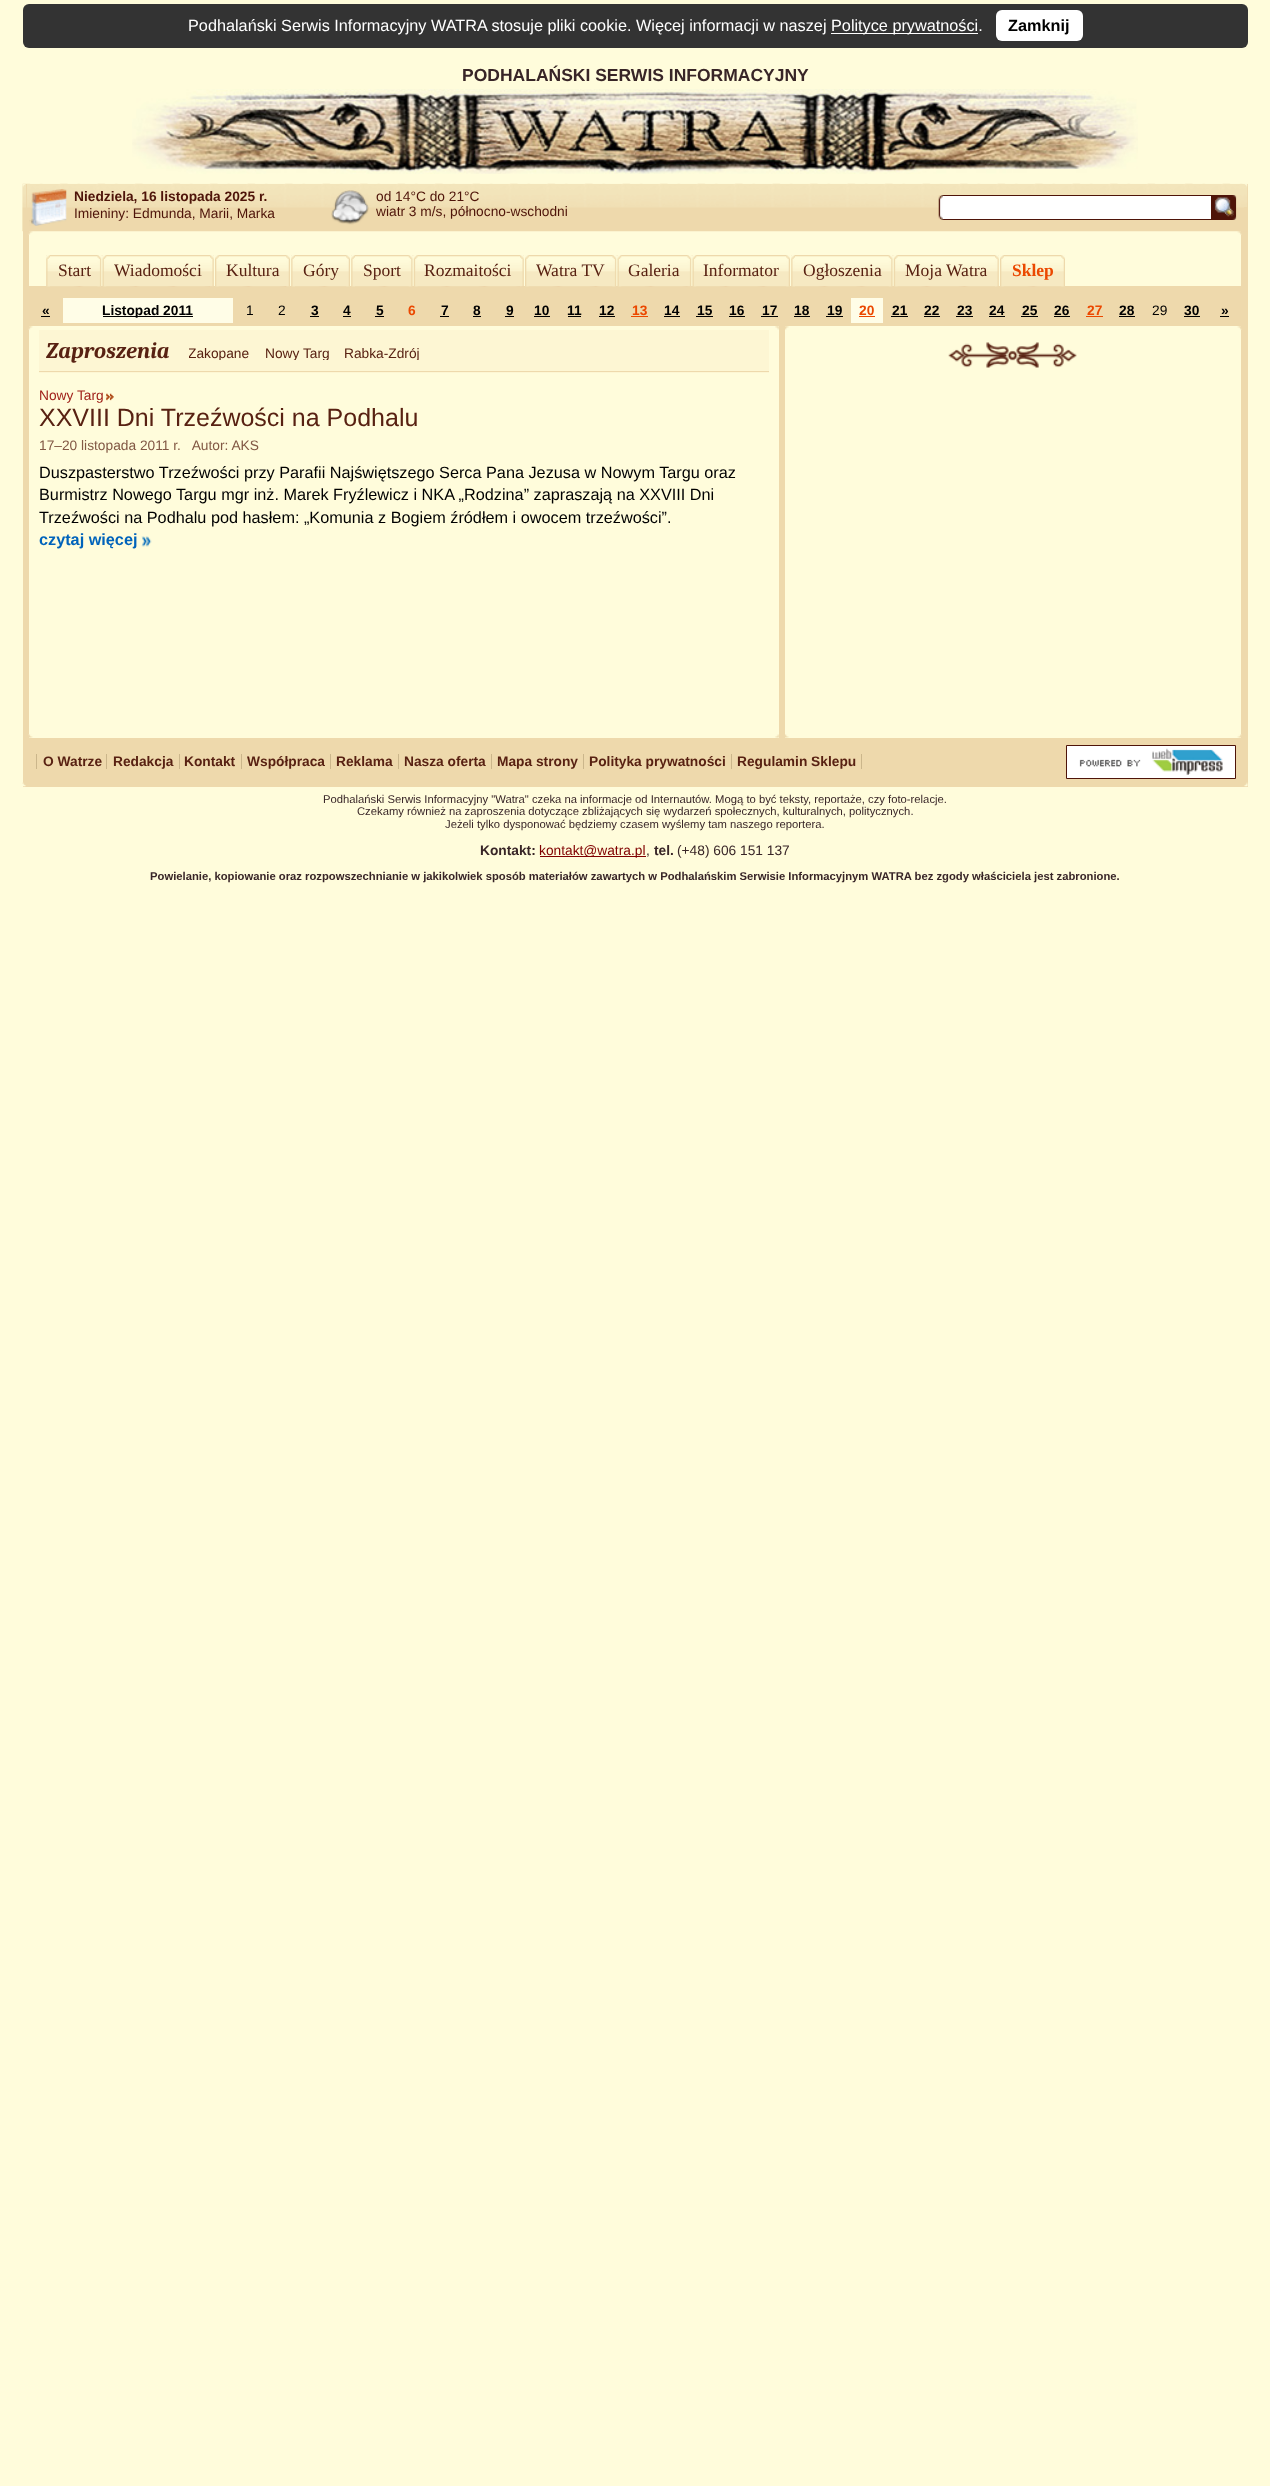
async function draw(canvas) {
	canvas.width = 1270;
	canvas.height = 2486;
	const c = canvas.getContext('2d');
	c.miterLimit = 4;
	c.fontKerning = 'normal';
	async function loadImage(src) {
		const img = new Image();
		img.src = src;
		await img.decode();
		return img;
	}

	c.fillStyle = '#fffcdb';
	c.fillRect(0, 0, 1270, 2486);
	c.fillStyle = '#333';
	c.beginPath();
	c.roundRect(23, 4, 1225, 44, 6);
	c.fill();
	c.font = '16.25px Liberation Sans';
	c.fillStyle = '#fff';
	c.fillText('Podhalański Serwis Informacyjny WATRA stosuje pliki cookie. Więcej informacji w naszej', 188, 31);
	c.fillRect(831, 33, 147, 1);
	c.fillText('Polityce prywatności.', 831, 31);
	c.beginPath();
	c.roundRect(996, 10, 87, 31, 6);
	c.fill();
	c.font = 'bold 16.25px Liberation Sans';
	c.fillStyle = '#000';
	c.fillText('Zamknij', 1008, 31);
	c.font = 'bold 17.5px Liberation Sans';
	c.fillStyle = '#382527';
	c.fillText('PODHALAŃSKI SERWIS INFORMACYJNY', 462, 81);
	c.drawImage(await loadImage('img1.png'), 132, 89, 1006, 85);
	c.fillStyle = '#eed9ac';
	c.fillRect(1241, 231, 7, 552);
	c.fillRect(23, 231, 6, 552);
	c.drawImage(await loadImage('img9.png'), 28, 231, 5, 4);
	c.drawImage(await loadImage('img10.png'), 1237, 231, 5, 4);
	c.drawImage(await loadImage('img2.png'), 22, 183, 1226, 49);
	c.fillRect(26, 184, 1, 24);
	c.drawImage(await loadImage('img3.png'), 22, 184, 4, 47);
	c.drawImage(await loadImage('img4.png'), 29, 189, 38, 37);
	c.font = 'bold 13.75px Liberation Sans';
	c.fillStyle = '#4e1409';
	c.fillText('Niedziela, 16 listopada 2025 r.', 74, 201);
	c.font = '13.75px Liberation Sans';
	c.fillText('Imieniny: Edmunda, Marii, Marka', 74, 218);
	c.drawImage(await loadImage('img5.png'), 331, 190, 38, 35);
	c.fillText('od 14°C do 21°C', 376, 201);
	c.fillText('wiatr 3 m/s, północno-wschodni', 376, 216);
	c.fillRect(943, 195, 271, 25);
	c.drawImage(await loadImage('img6.png'), 938, 195, 6, 25);
	c.fillStyle = '#fff';
	c.fillRect(943, 196, 268, 23);
	c.drawImage(await loadImage('img7.png'), 1214, 195, 23, 25);
	c.fillStyle = '#eed9ac';
	c.fillRect(1244, 184, 4, 47);
	c.drawImage(await loadImage('img8.png'), 1244, 184, 4, 23);
	c.fillRect(29, 286, 1212, 40);
	c.drawImage(await loadImage('img11.png'), 46, 255, 56, 32);
	c.drawImage(await loadImage('img12.png'), 46, 255, 4, 32);
	c.font = '17.5px Liberation Serif';
	c.fillStyle = '#582112';
	c.fillText('Start', 58, 276);
	c.drawImage(await loadImage('img13.png'), 97, 255, 5, 32);
	c.drawImage(await loadImage('img14.png'), 102, 255, 112, 32);
	c.drawImage(await loadImage('img15.png'), 102, 255, 5, 32);
	c.fillText('Wiadomości', 114, 276);
	c.drawImage(await loadImage('img16.png'), 210, 255, 4, 32);
	c.drawImage(await loadImage('img17.png'), 215, 255, 75, 32);
	c.drawImage(await loadImage('img18.png'), 215, 255, 4, 32);
	c.fillText('Kultura', 226, 276);
	c.drawImage(await loadImage('img19.png'), 286, 255, 4, 32);
	c.drawImage(await loadImage('img20.png'), 291, 255, 59, 32);
	c.drawImage(await loadImage('img12.png'), 291, 255, 4, 32);
	c.fillText('Góry', 303, 276);
	c.drawImage(await loadImage('img21.png'), 346, 255, 4, 32);
	c.drawImage(await loadImage('img22.png'), 351, 255, 62, 32);
	c.drawImage(await loadImage('img12.png'), 351, 255, 4, 32);
	c.fillText('Sport', 363, 276);
	c.drawImage(await loadImage('img23.png'), 408, 255, 5, 32);
	c.drawImage(await loadImage('img24.png'), 413, 255, 111, 32);
	c.drawImage(await loadImage('img25.png'), 413, 255, 5, 32);
	c.fillText('Rozmaitości', 424, 276);
	c.drawImage(await loadImage('img26.png'), 520, 255, 4, 32);
	c.drawImage(await loadImage('img27.png'), 525, 255, 92, 32);
	c.drawImage(await loadImage('img28.png'), 525, 255, 4, 32);
	c.fillText('Watra TV', 536, 276);
	c.drawImage(await loadImage('img13.png'), 612, 255, 5, 32);
	c.drawImage(await loadImage('img29.png'), 617, 255, 75, 32);
	c.drawImage(await loadImage('img15.png'), 617, 255, 5, 32);
	c.fillText('Galeria', 628, 276);
	c.drawImage(await loadImage('img30.png'), 687, 255, 5, 32);
	c.drawImage(await loadImage('img31.png'), 692, 255, 98, 32);
	c.drawImage(await loadImage('img15.png'), 692, 255, 5, 32);
	c.fillText('Informator', 703, 276);
	c.drawImage(await loadImage('img21.png'), 786, 255, 4, 32);
	c.drawImage(await loadImage('img32.png'), 791, 255, 102, 32);
	c.drawImage(await loadImage('img12.png'), 791, 255, 4, 32);
	c.fillText('Ogłoszenia', 803, 276);
	c.drawImage(await loadImage('img23.png'), 888, 255, 5, 32);
	c.drawImage(await loadImage('img33.png'), 893, 255, 106, 32);
	c.drawImage(await loadImage('img25.png'), 893, 255, 5, 32);
	c.fillText('Moja Watra', 905, 276);
	c.drawImage(await loadImage('img34.png'), 995, 255, 4, 32);
	c.drawImage(await loadImage('img35.png'), 1000, 255, 65, 32);
	c.drawImage(await loadImage('img28.png'), 1000, 255, 4, 32);
	c.font = 'bold 17.5px Liberation Serif';
	c.fillStyle = '#eb4800';
	c.fillText('Sklep', 1012, 276);
	c.drawImage(await loadImage('img36.png'), 1061, 255, 4, 32);
	c.font = 'bold 13.75px Liberation Sans';
	c.fillStyle = '#000';
	c.fillText('«', 42, 315);
	for (const [x, y, w, h, color] of [
		[41, 316, 9, 1, '#000'],
		[63, 298, 170, 25, '#fffde7'],
		[103, 316, 90, 1, '#000'],
	]) {
		c.fillStyle = color;
		c.fillRect(x, y, w, h);
	}
	c.fillText('Listopad 2011', 102, 315);
	c.font = '13.75px Liberation Sans';
	c.fillText('1', 246, 315);
	c.fillText('2', 278, 315);
	c.font = 'bold 13.75px Liberation Sans';
	c.fillText('3', 311, 315);
	c.fillRect(310, 316, 9, 1);
	c.fillText('4', 343, 315);
	c.fillRect(343, 316, 8, 1);
	c.fillText('5', 376, 315);
	c.fillRect(375, 316, 9, 1);
	c.fillStyle = '#eb4800';
	c.fillText('6', 408, 315);
	c.fillStyle = '#000';
	c.fillText('7', 441, 315);
	c.fillRect(440, 316, 9, 1);
	c.fillText('8', 473, 315);
	c.fillRect(473, 316, 8, 1);
	c.fillText('9', 506, 315);
	c.fillRect(505, 316, 9, 1);
	c.fillText('10', 534, 315);
	c.fillRect(534, 316, 16, 1);
	c.fillText('11', 567, 315);
	c.fillRect(568, 316, 13, 1);
	c.fillText('12', 599, 315);
	c.fillRect(599, 316, 16, 1);
	c.fillStyle = '#eb4800';
	c.fillText('13', 632, 315);
	c.fillRect(631, 316, 17, 1);
	c.fillStyle = '#000';
	c.fillText('14', 664, 315);
	c.fillRect(664, 316, 16, 1);
	c.fillText('15', 697, 315);
	c.fillRect(696, 316, 17, 1);
	c.fillText('16', 729, 315);
	c.fillRect(729, 316, 16, 1);
	c.fillText('17', 762, 315);
	c.fillRect(761, 316, 17, 1);
	c.fillText('18', 794, 315);
	c.fillRect(794, 316, 16, 1);
	c.fillText('19', 827, 315);
	c.fillRect(826, 316, 17, 1);
	c.fillStyle = '#fffde7';
	c.fillRect(851, 298, 32, 25);
	c.fillStyle = '#eb4800';
	c.fillText('20', 859, 315);
	c.fillRect(859, 316, 16, 1);
	c.fillStyle = '#000';
	c.fillText('21', 892, 315);
	c.fillRect(891, 316, 17, 1);
	c.fillText('22', 924, 315);
	c.fillRect(924, 316, 16, 1);
	c.fillText('23', 957, 315);
	c.fillRect(956, 316, 17, 1);
	c.fillText('24', 989, 315);
	c.fillRect(989, 316, 16, 1);
	c.fillText('25', 1022, 315);
	c.fillRect(1021, 316, 17, 1);
	c.fillText('26', 1054, 315);
	c.fillRect(1054, 316, 16, 1);
	c.fillStyle = '#eb4800';
	c.fillText('27', 1087, 315);
	c.fillRect(1086, 316, 17, 1);
	c.fillStyle = '#000';
	c.fillText('28', 1119, 315);
	c.fillRect(1119, 316, 16, 1);
	c.font = '13.75px Liberation Sans';
	c.fillText('29', 1152, 315);
	c.font = 'bold 13.75px Liberation Sans';
	c.fillText('30', 1184, 315);
	c.fillRect(1184, 316, 16, 1);
	c.fillText('»', 1221, 315);
	c.fillRect(1220, 316, 9, 1);
	c.fillStyle = '#eed9ac';
	c.fillRect(779, 326, 6, 412);
	c.drawImage(await loadImage('img37.png'), 28, 734, 5, 4);
	c.drawImage(await loadImage('img38.png'), 775, 734, 4, 4);
	c.drawImage(await loadImage('img39.png'), 785, 734, 4, 4);
	c.drawImage(await loadImage('img40.png'), 1237, 734, 5, 4);
	c.drawImage(await loadImage('img9.png'), 28, 326, 5, 4);
	c.drawImage(await loadImage('img41.png'), 775, 326, 4, 4);
	c.fillStyle = '#fdf6d3';
	c.fillRect(39, 330, 730, 43);
	c.fillStyle = '#eed9ac';
	c.fillRect(39, 371, 730, 1);
	c.font = 'italic bold 22.5px Caladea';
	c.fillStyle = '#582112';
	c.fillText('Zaproszenia', 46, 358);
	c.save();
	c.beginPath();
	c.rect(189, 345, 246, 15);
	c.clip();
	c.font = '13.75px Liberation Sans';
	for (const [text, x, y] of [
		['Zakopane', 188, 358],
		['Nowy Targ', 265, 358],
		['Rabka-Zdrój', 344, 358],
	]) {
		c.fillText(text, x, y);
	}
	c.restore();
	c.font = '13.75px Liberation Sans';
	c.fillStyle = '#a1221b';
	c.fillText('Nowy Targ', 39, 400);
	c.drawImage(await loadImage('img42.png'), 106, 393, 8, 8);
	c.font = '25px Liberation Sans';
	c.fillStyle = '#582112';
	c.fillText('XXVIII Dni Trzeźwości na Podhalu', 39, 426);
	c.font = '13.75px Liberation Sans';
	c.fillStyle = '#825844';
	c.fillText('17–20 listopada 2011 r.   Autor: AKS', 39, 450);
	c.font = '16.25px Liberation Sans';
	c.fillStyle = '#000';
	for (const [text, x, y] of [
		['Duszpasterstwo Trzeźwości przy Parafii Najświętszego Serca Pana Jezusa w Nowym Targu oraz', 39, 478],
		['Burmistrz Nowego Targu mgr inż. Marek Fryźlewicz i NKA „Rodzina” zapraszają na XXVIII Dni', 39, 500],
		['Trzeźwości na Podhalu pod hasłem: „Komunia z Bogiem źródłem i owocem trzeźwości”.', 39, 523],
	]) {
		c.fillText(text, x, y);
	}
	c.font = 'bold 16.25px Liberation Sans';
	c.fillStyle = '#0063bb';
	c.fillText('czytaj więcej', 39, 545);
	c.drawImage(await loadImage('img43.png'), 141, 536, 11, 11);
	c.drawImage(await loadImage('img44.png'), 785, 326, 4, 4);
	c.drawImage(await loadImage('img10.png'), 1237, 326, 5, 4);
	c.drawImage(await loadImage('img45.png'), 948, 342, 129, 26);
	c.fillStyle = '#eed9ac';
	c.fillRect(29, 738, 1212, 45);
	c.fillStyle = '#cbb68b';
	c.fillRect(36, 754, 1, 15);
	c.font = 'bold 13.75px Liberation Sans';
	c.fillStyle = '#582112';
	c.fillText('O Watrze', 43, 766);
	c.fillStyle = '#cbb68b';
	c.fillRect(106, 754, 1, 15);
	c.fillStyle = '#582112';
	c.fillText('Redakcja', 113, 766);
	c.fillStyle = '#cbb68b';
	c.fillRect(179, 754, 1, 15);
	c.fillStyle = '#582112';
	c.fillText('Kontakt', 184, 766);
	c.fillStyle = '#cbb68b';
	c.fillRect(241, 754, 1, 15);
	c.fillStyle = '#582112';
	c.fillText('Współpraca', 247, 766);
	c.fillStyle = '#cbb68b';
	c.fillRect(330, 754, 1, 15);
	c.fillStyle = '#582112';
	c.fillText('Reklama', 336, 766);
	c.fillStyle = '#cbb68b';
	c.fillRect(398, 754, 1, 15);
	c.fillStyle = '#582112';
	c.fillText('Nasza oferta', 404, 766);
	c.fillStyle = '#cbb68b';
	c.fillRect(491, 754, 1, 15);
	c.fillStyle = '#582112';
	c.fillText('Mapa strony', 497, 766);
	c.fillStyle = '#cbb68b';
	c.fillRect(583, 754, 1, 15);
	c.fillStyle = '#582112';
	c.fillText('Polityka prywatności', 589, 766);
	c.fillStyle = '#cbb68b';
	c.fillRect(731, 754, 1, 15);
	c.fillStyle = '#582112';
	c.fillText('Regulamin Sklepu', 737, 766);
	c.fillStyle = '#cbb68b';
	c.fillRect(861, 754, 1, 15);
	c.fillStyle = '#fff';
	c.beginPath();
	c.rect(1066.5, 745.5, 169, 33);
	c.fill();
	c.strokeStyle = '#4e1409';
	c.stroke();
	c.drawImage(await loadImage('img46.png'), 1079, 748, 144, 27);
	c.fillStyle = '#eed9ac';
	c.fillRect(23, 783, 1225, 4);
	c.drawImage(await loadImage('img47.png'), 22, 782, 4, 5);
	c.drawImage(await loadImage('img48.png'), 1244, 782, 4, 5);
	c.font = '11.25px Liberation Sans';
	c.fillStyle = '#382527';
	for (const [text, x, y] of [
		['Podhalański Serwis Informacyjny "Watra" czeka na informacje od Internautów. Mogą to być teksty, reportaże, czy foto-relacje.', 323, 803],
		['Czekamy również na zaproszenia dotyczące zbliżających się wydarzeń społecznych, kulturalnych, politycznych.', 357, 815],
		['Jeżeli tylko dysponować będziemy czasem wyślemy tam naszego reportera.', 445, 828],
	]) {
		c.fillText(text, x, y);
	}
	c.font = 'bold 13.75px Liberation Sans';
	c.fillText('Kontakt:', 480, 855);
	c.fillStyle = '#800000';
	c.fillRect(540, 856, 106, 1);
	c.font = '13.75px Liberation Sans';
	c.fillText('kontakt@watra.pl', 539, 855);
	c.fillStyle = '#382527';
	c.fillText(',', 646, 855);
	c.font = 'bold 13.75px Liberation Sans';
	c.fillText('tel.', 654, 855);
	c.font = '13.75px Liberation Sans';
	c.fillText('(+48) 606 151 137', 677, 855);
	c.font = 'bold 11.25px Liberation Sans';
	c.fillText('Powielanie, kopiowanie oraz rozpowszechnianie w jakikolwiek sposób materiałów zawartych w Podhalańskim Serwisie Informacyjnym WATRA bez zgody właściciela jest zabronione.', 150, 880);
}

draw(document.querySelector('canvas'));
